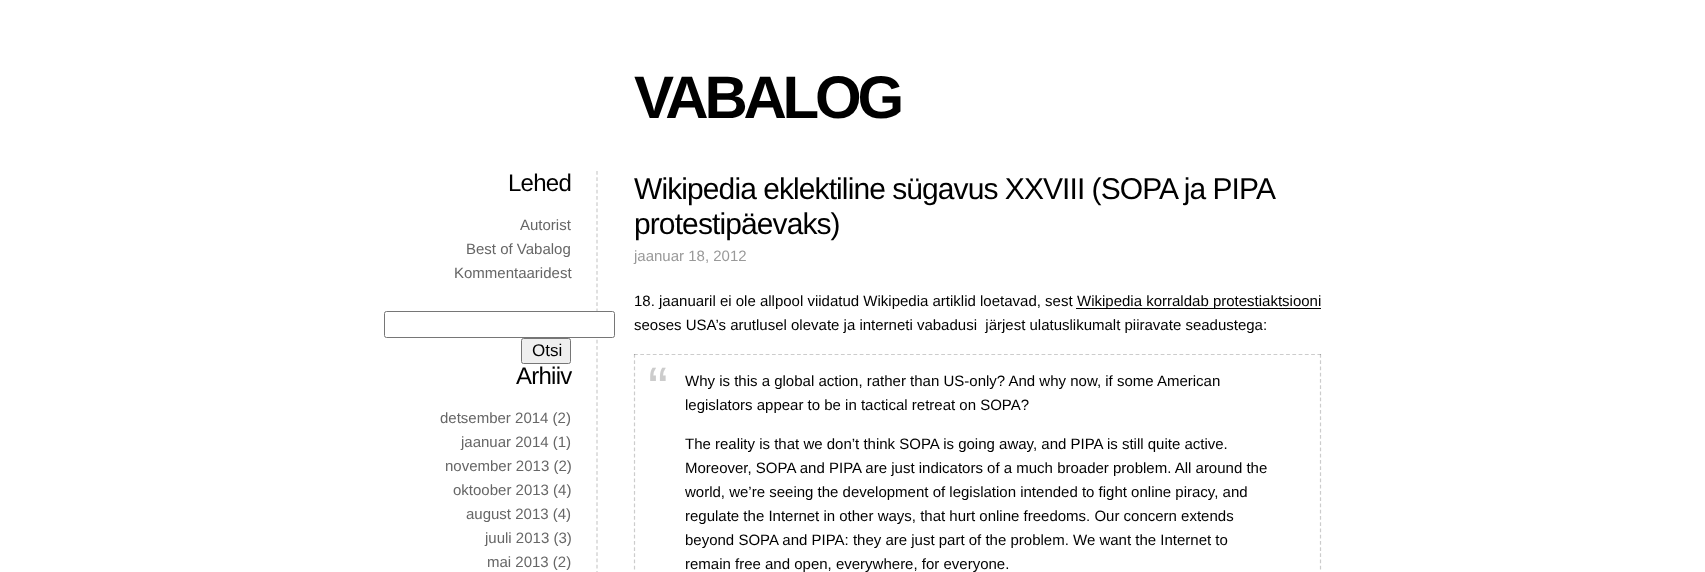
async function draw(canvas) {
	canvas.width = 1705;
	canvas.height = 572;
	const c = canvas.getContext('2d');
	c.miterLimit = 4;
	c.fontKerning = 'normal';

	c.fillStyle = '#fff';
	c.fillRect(0, 0, 1705, 572);
	c.letterSpacing = '-4.25px';
	c.font = 'bold 60px Liberation Sans';
	c.fillStyle = '#000';
	c.fillText('VABALOG', 634, 118);
	c.beginPath();
	c.moveTo(597, 171);
	c.lineTo(597, 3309);
	c.strokeStyle = '#ccc';
	c.lineWidth = 1.2;
	c.setLineDash([3.75, 2.5]);
	c.stroke();
	c.letterSpacing = '-0.75px';
	c.font = '24px Liberation Sans';
	c.fillText('Lehed', 508, 191);
	c.letterSpacing = '0px';
	c.font = '15px Liberation Sans';
	c.fillStyle = '#666';
	for (const [text, x, y] of [
		['Autorist', 520, 230],
		['Best of Vabalog', 466, 254],
		['Kommentaaridest', 454, 278],
	]) {
		c.fillText(text, x, y);
	}
	c.fillStyle = '#fff';
	c.beginPath();
	c.roundRect(384.5, 311.5, 230, 26, 2);
	c.fill();
	c.strokeStyle = '#767676';
	c.lineWidth = 1;
	c.setLineDash([]);
	c.stroke();
	c.fillStyle = '#efefef';
	c.beginPath();
	c.roundRect(521.5, 338.5, 49, 25, 2);
	c.fill();
	c.stroke();
	c.font = '17px Liberation Sans';
	c.fillStyle = '#000';
	c.fillText('Otsi', 532, 356);
	c.letterSpacing = '-0.75px';
	c.font = '24px Liberation Sans';
	c.fillText('Arhiiv', 516, 384);
	c.letterSpacing = '0px';
	c.font = '15px Liberation Sans';
	c.fillStyle = '#666';
	for (const [text, x, y] of [
		['detsember 2014 (2)', 440, 423],
		['jaanuar 2014 (1)', 461, 447],
		['november 2013 (2)', 445, 471],
		['oktoober 2013 (4)', 453, 495],
		['august 2013 (4)', 466, 519],
		['juuli 2013 (3)', 485, 543],
		['mai 2013 (2)', 487, 567],
	]) {
		c.fillText(text, x, y);
	}
	c.letterSpacing = '-0.9px';
	c.wordSpacing = '-0.25px';
	c.font = '30px Liberation Sans';
	c.fillStyle = '#000';
	c.fillText('Wikipedia eklektiline sügavus XXVIII (SOPA ja PIPA', 634, 199);
	c.wordSpacing = '0px';
	c.fillText('protestipäevaks)', 634, 234);
	c.letterSpacing = '0px';
	c.font = '15px Liberation Sans';
	c.fillStyle = '#999';
	c.fillText('jaanuar 18, 2012', 634, 261);
	c.fillStyle = '#000';
	c.fillText('18. jaanuaril ei ole allpool viidatud Wikipedia artiklid loetavad, sest', 634, 306);
	c.fillRect(1076, 308, 245, 1);
	c.fillText('Wikipedia korraldab protestiaktsiooni', 1077, 306);
	c.fillText('seoses USA’s arutlusel olevate ja interneti vabadusi  järjest ulatuslikumalt piiravate seadustega:', 634, 330);
	c.beginPath();
	c.moveTo(634, 354.5);
	c.lineTo(1321, 354.5);
	c.strokeStyle = '#ccc';
	c.lineWidth = 1.2;
	c.setLineDash([3.75, 2.52]);
	c.stroke();
	c.beginPath();
	c.moveTo(1320.5, 354);
	c.lineTo(1320.5, 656);
	c.strokeStyle = '#00000033';
	c.setLineDash([3.75, 2.48]);
	c.stroke();
	c.beginPath();
	c.moveTo(634.5, 354);
	c.lineTo(634.5, 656);
	c.stroke();
	c.font = '60px Liberation Sans';
	c.fillStyle = '#ccc';
	c.fillText('“', 648, 409);
	c.font = '15px Liberation Sans';
	c.fillStyle = '#000';
	for (const [text, x, y] of [
		['Why is this a global action, rather than US-only? And why now, if some American', 685, 386],
		['legislators appear to be in tactical retreat on SOPA?', 685, 410],
		['The reality is that we don’t think SOPA is going away, and PIPA is still quite active.', 685, 449],
		['Moreover, SOPA and PIPA are just indicators of a much broader problem. All around the', 685, 473],
		['world, we’re seeing the development of legislation intended to fight online piracy, and', 685, 497],
		['regulate the Internet in other ways, that hurt online freedoms. Our concern extends', 685, 521],
		['beyond SOPA and PIPA: they are just part of the problem. We want the Internet to', 685, 545],
		['remain free and open, everywhere, for everyone.', 685, 569],
	]) {
		c.fillText(text, x, y);
	}
}

draw(document.querySelector('canvas'));
